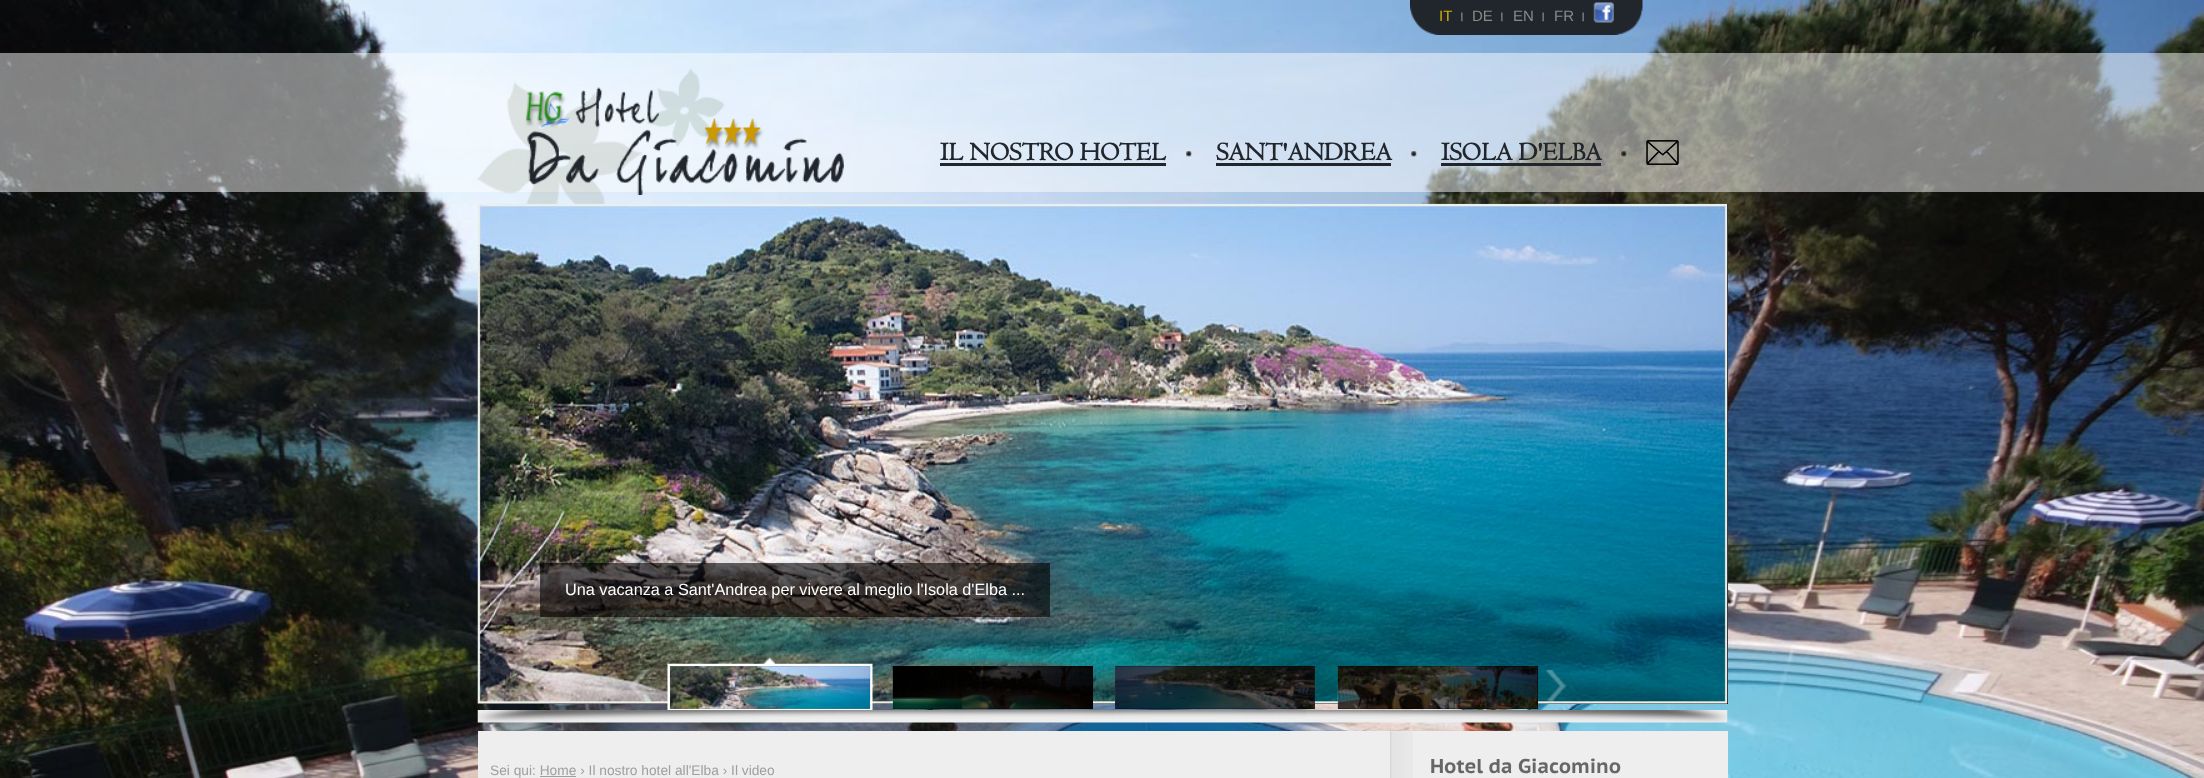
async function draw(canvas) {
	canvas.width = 2204;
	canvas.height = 778;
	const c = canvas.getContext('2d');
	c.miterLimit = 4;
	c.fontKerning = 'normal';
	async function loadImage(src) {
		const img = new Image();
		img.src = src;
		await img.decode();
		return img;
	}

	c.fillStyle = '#fff';
	c.fillRect(0, 0, 2204, 778);
	c.drawImage(await loadImage('img1.png'), 0, 0, 2204, 778);
	c.drawImage(await loadImage('img2.png'), 1410, 0, 233, 35);
	c.drawImage(await loadImage('img3.png'), 1461, 12, 2, 10);
	c.font = '15px Liberation Sans';
	c.fillStyle = '#d0b000';
	c.fillText('IT', 1439, 21);
	c.drawImage(await loadImage('img3.png'), 1501, 12, 2, 10);
	c.fillStyle = '#8a8a8a';
	c.fillText('DE', 1472, 21);
	c.drawImage(await loadImage('img4.png'), 1542, 12, 2, 10);
	c.fillText('EN', 1513, 21);
	c.drawImage(await loadImage('img4.png'), 1582, 12, 2, 10);
	c.fillText('FR', 1554, 21);
	c.drawImage(await loadImage('img5.png'), 1593, 2, 21, 21);
	c.fillStyle = '#ffffff7d';
	c.fillRect(0, 53, 2204, 139);
	c.drawImage(await loadImage('img6.png'), 477, 68, 247, 136);
	c.drawImage(await loadImage('img7.png'), 525, 87, 319, 108);
	c.drawImage(await loadImage('img8.png'), 1186, 151, 6, 6);
	c.font = 'bold 26.25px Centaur';
	c.fillStyle = '#21262d';
	c.fillText('IL NOSTRO HOTEL', 940, 160);
	c.fillRect(940, 163, 226, 3);
	c.drawImage(await loadImage('img9.png'), 1411, 151, 6, 6);
	c.fillText('SANT\'ANDREA', 1216, 160);
	c.fillRect(1216, 163, 175, 3);
	c.drawImage(await loadImage('img10.png'), 1621, 151, 6, 6);
	c.fillText('ISOLA D\'ELBA', 1441, 160);
	c.fillRect(1441, 163, 160, 3);
	c.drawImage(await loadImage('img11.png'), 1646, 140, 33, 25);
	c.fillStyle = '#000';
	c.fillRect(478, 204, 1250, 500);
	c.drawImage(await loadImage('img12.png'), 477, 203, 1251, 501);
	c.fillStyle = '#00000099';
	c.fillRect(540, 563, 510, 54);
	c.font = '16.25px Liberation Sans';
	c.fillStyle = '#fff';
	c.fillText('Una vacanza a Sant\'Andrea per vivere al meglio l\'Isola d\'Elba ...', 565, 595);
	c.drawImage(await loadImage('img13.png'), 667, 657, 206, 53);
	c.drawImage(await loadImage('img14.png'), 670, 666, 200, 43);
	c.fillStyle = '#000';
	c.fillRect(893, 666, 200, 43);
	c.drawImage(await loadImage('img15.png'), 892, 666, 201, 43);
	c.fillRect(1115, 666, 200, 43);
	c.drawImage(await loadImage('img16.png'), 1115, 666, 200, 43);
	c.fillRect(1338, 666, 200, 43);
	c.drawImage(await loadImage('img17.png'), 1337, 666, 201, 43);
	c.drawImage(await loadImage('img18.png'), 629, 670, 19, 31);
	c.drawImage(await loadImage('img19.png'), 1546, 670, 21, 32);
	c.drawImage(await loadImage('img20.png'), 477, 710, 1251, 13);
	c.fillStyle = '#eee';
	c.fillRect(478, 731, 1250, 47);
	c.font = '13.75px Liberation Sans';
	c.fillStyle = '#9f9f9f';
	c.fillText('Sei qui: Home › Il nostro hotel all\'Elba › Il video', 490, 775);
	c.fillRect(540, 776, 36, 1);
	c.drawImage(await loadImage('img21.png'), 1390, 731, 23, 47);
	c.font = 'bold 20px PT Sans Caption';
	c.fillStyle = '#666';
	c.fillText('Hotel da Giacomino', 1430, 773);
}

draw(document.querySelector('canvas'));
